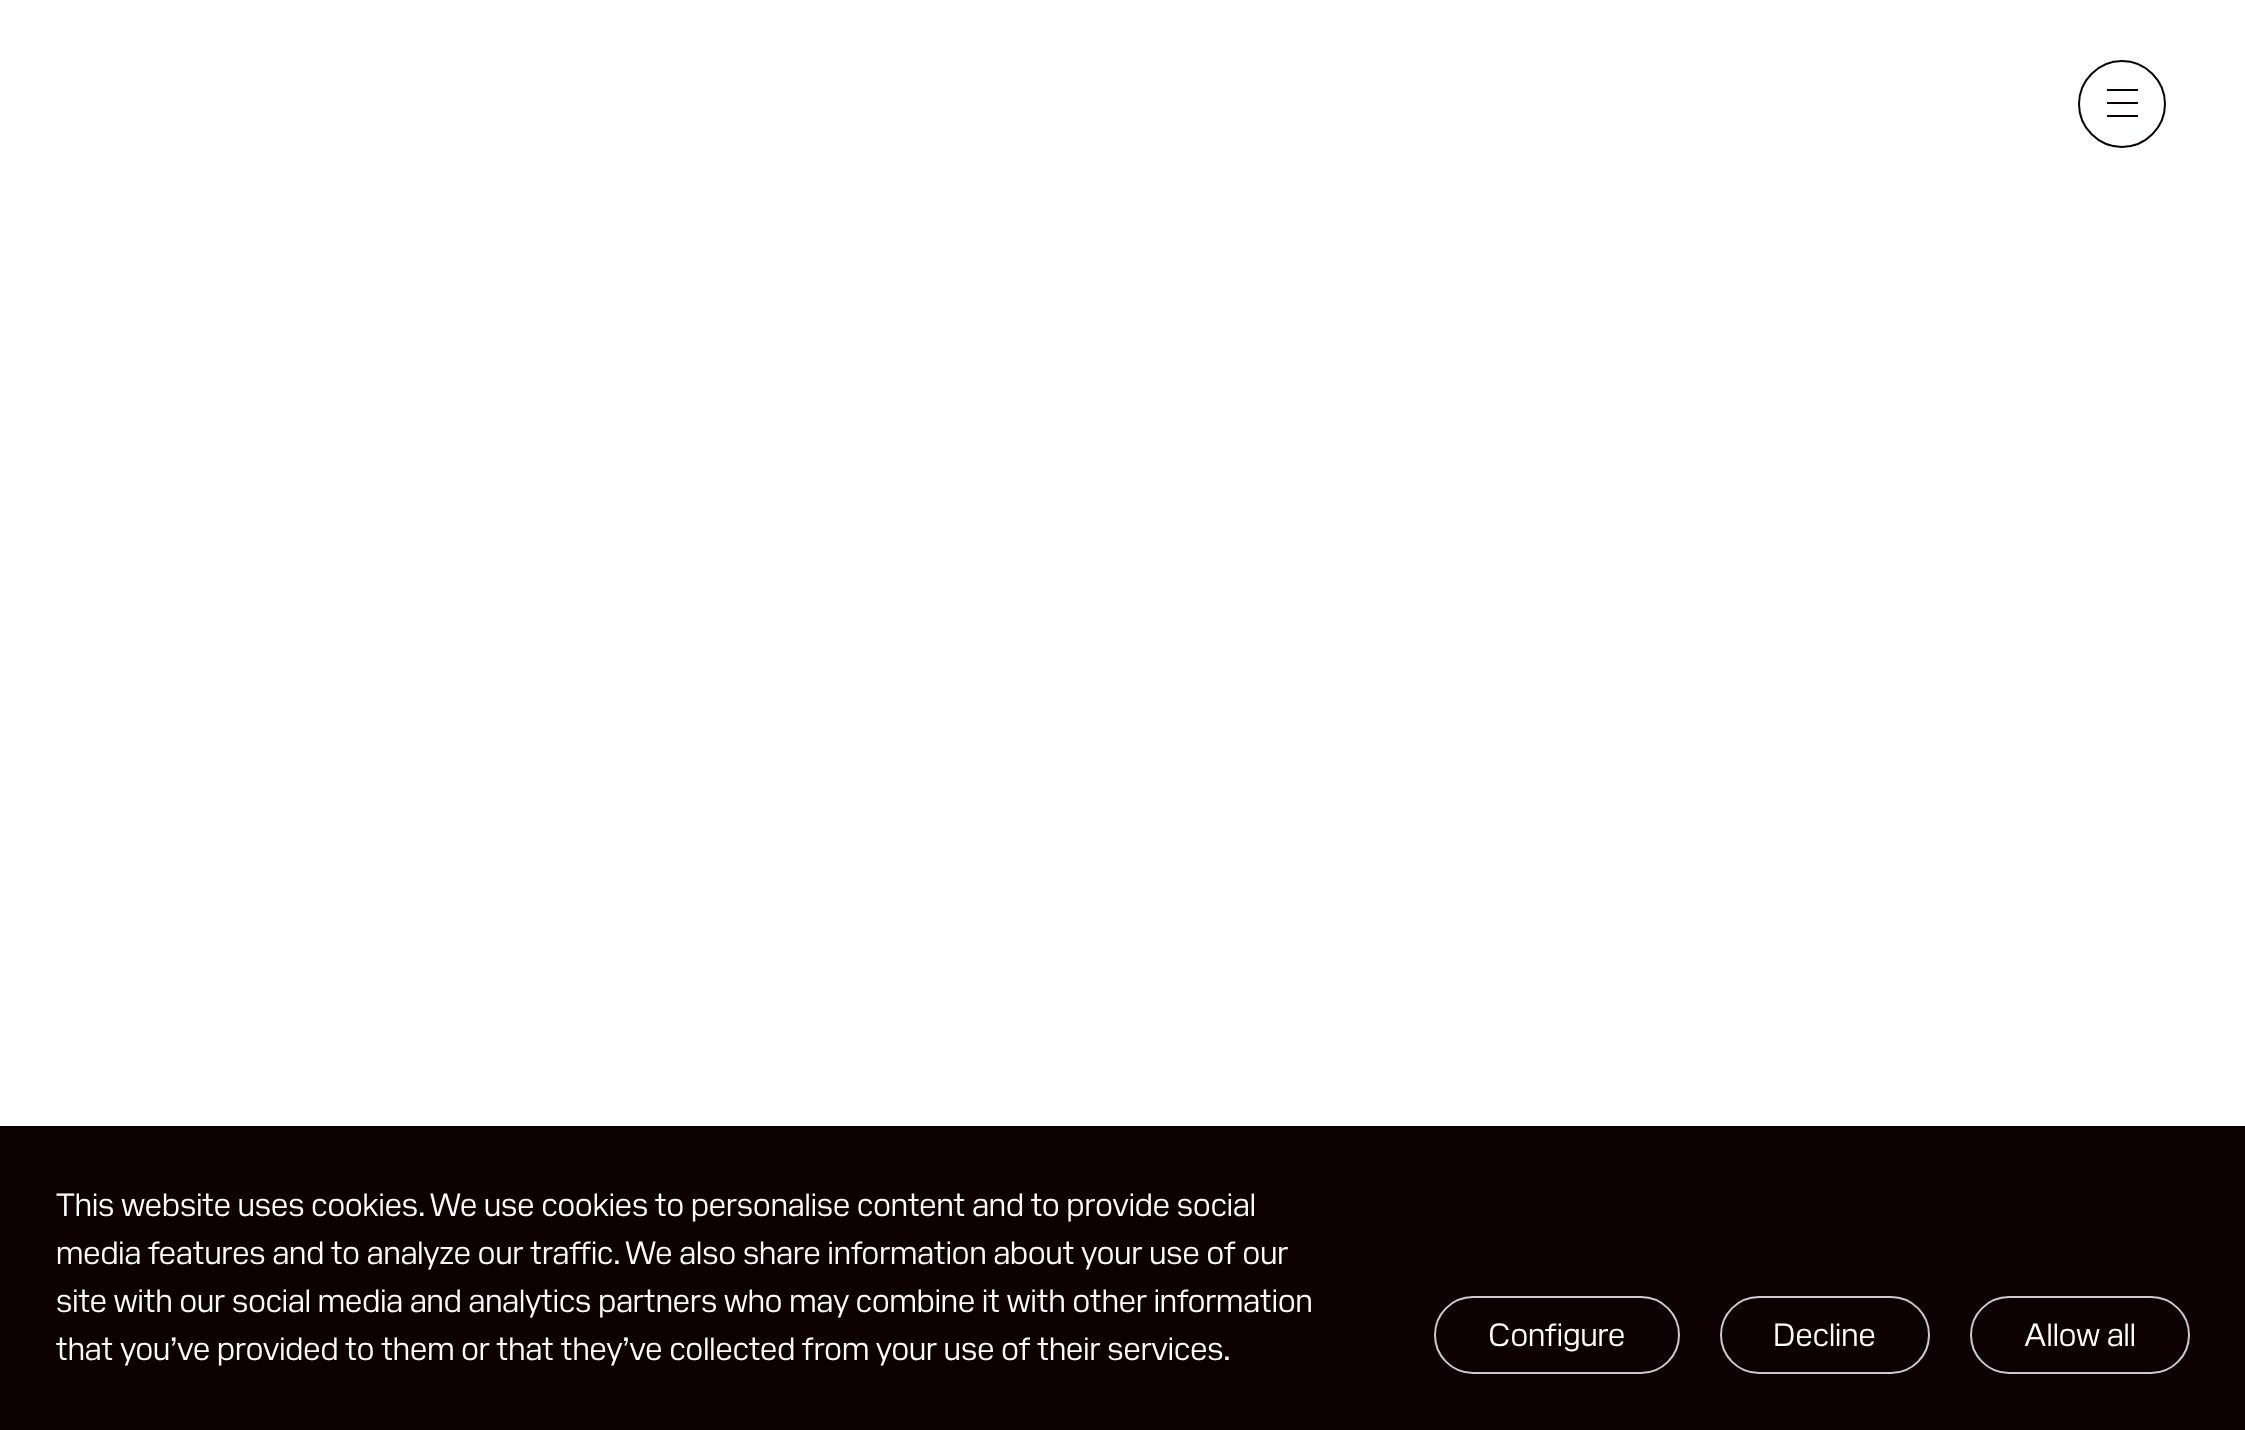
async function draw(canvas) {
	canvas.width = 2245;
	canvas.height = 1430;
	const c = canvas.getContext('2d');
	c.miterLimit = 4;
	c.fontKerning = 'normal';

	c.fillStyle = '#fff';
	c.fillRect(0, 0, 2245, 1430);
	c.beginPath();
	c.moveTo(2165, 104);
	c.bezierCurveTo(2165, 127.5, 2145.5, 147, 2122, 147);
	c.bezierCurveTo(2098.5, 147, 2079, 127.5, 2079, 104);
	c.bezierCurveTo(2079, 80.5, 2098.5, 61, 2122, 61);
	c.bezierCurveTo(2145.5, 61, 2165, 80.5, 2165, 104);
	c.closePath();
	c.strokeStyle = '#0d0000';
	c.lineWidth = 2;
	c.stroke();
	for (const [x, y, w, h, color] of [
		[2107, 89, 31, 2, '#0d0000'],
		[2107, 102, 31, 2, '#0d0000'],
		[2107, 115, 31, 2, '#0d0000'],
		[0, 1126, 2245, 304, '#0d0000'],
	]) {
		c.fillStyle = color;
		c.fillRect(x, y, w, h);
	}
	c.font = '32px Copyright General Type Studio';
	c.fillStyle = '#fff';
	for (const [text, x, y] of [
		['This website uses cookies. We use cookies to personalise content and to provide social', 56, 1216],
		['media features and to analyze our traffic. We also share information about your use of our', 56, 1264],
		['site with our social media and analytics partners who may combine it with other information', 56, 1312],
		['that you’ve provided to them or that they’ve collected from your use of their services.', 56, 1360],
	]) {
		c.fillText(text, x, y);
	}
	c.beginPath();
	c.roundRect(1435, 1297, 244, 76, 38);
	c.strokeStyle = '#cacad4';
	c.stroke();
	c.fillText('Configure', 1488, 1346);
	c.beginPath();
	c.roundRect(1721, 1297, 208, 76, 38);
	c.stroke();
	c.fillText('Decline', 1773, 1346);
	c.beginPath();
	c.roundRect(1971, 1297, 218, 76, 38);
	c.stroke();
	c.fillText('Allow all', 2024, 1346);
}

draw(document.querySelector('canvas'));
